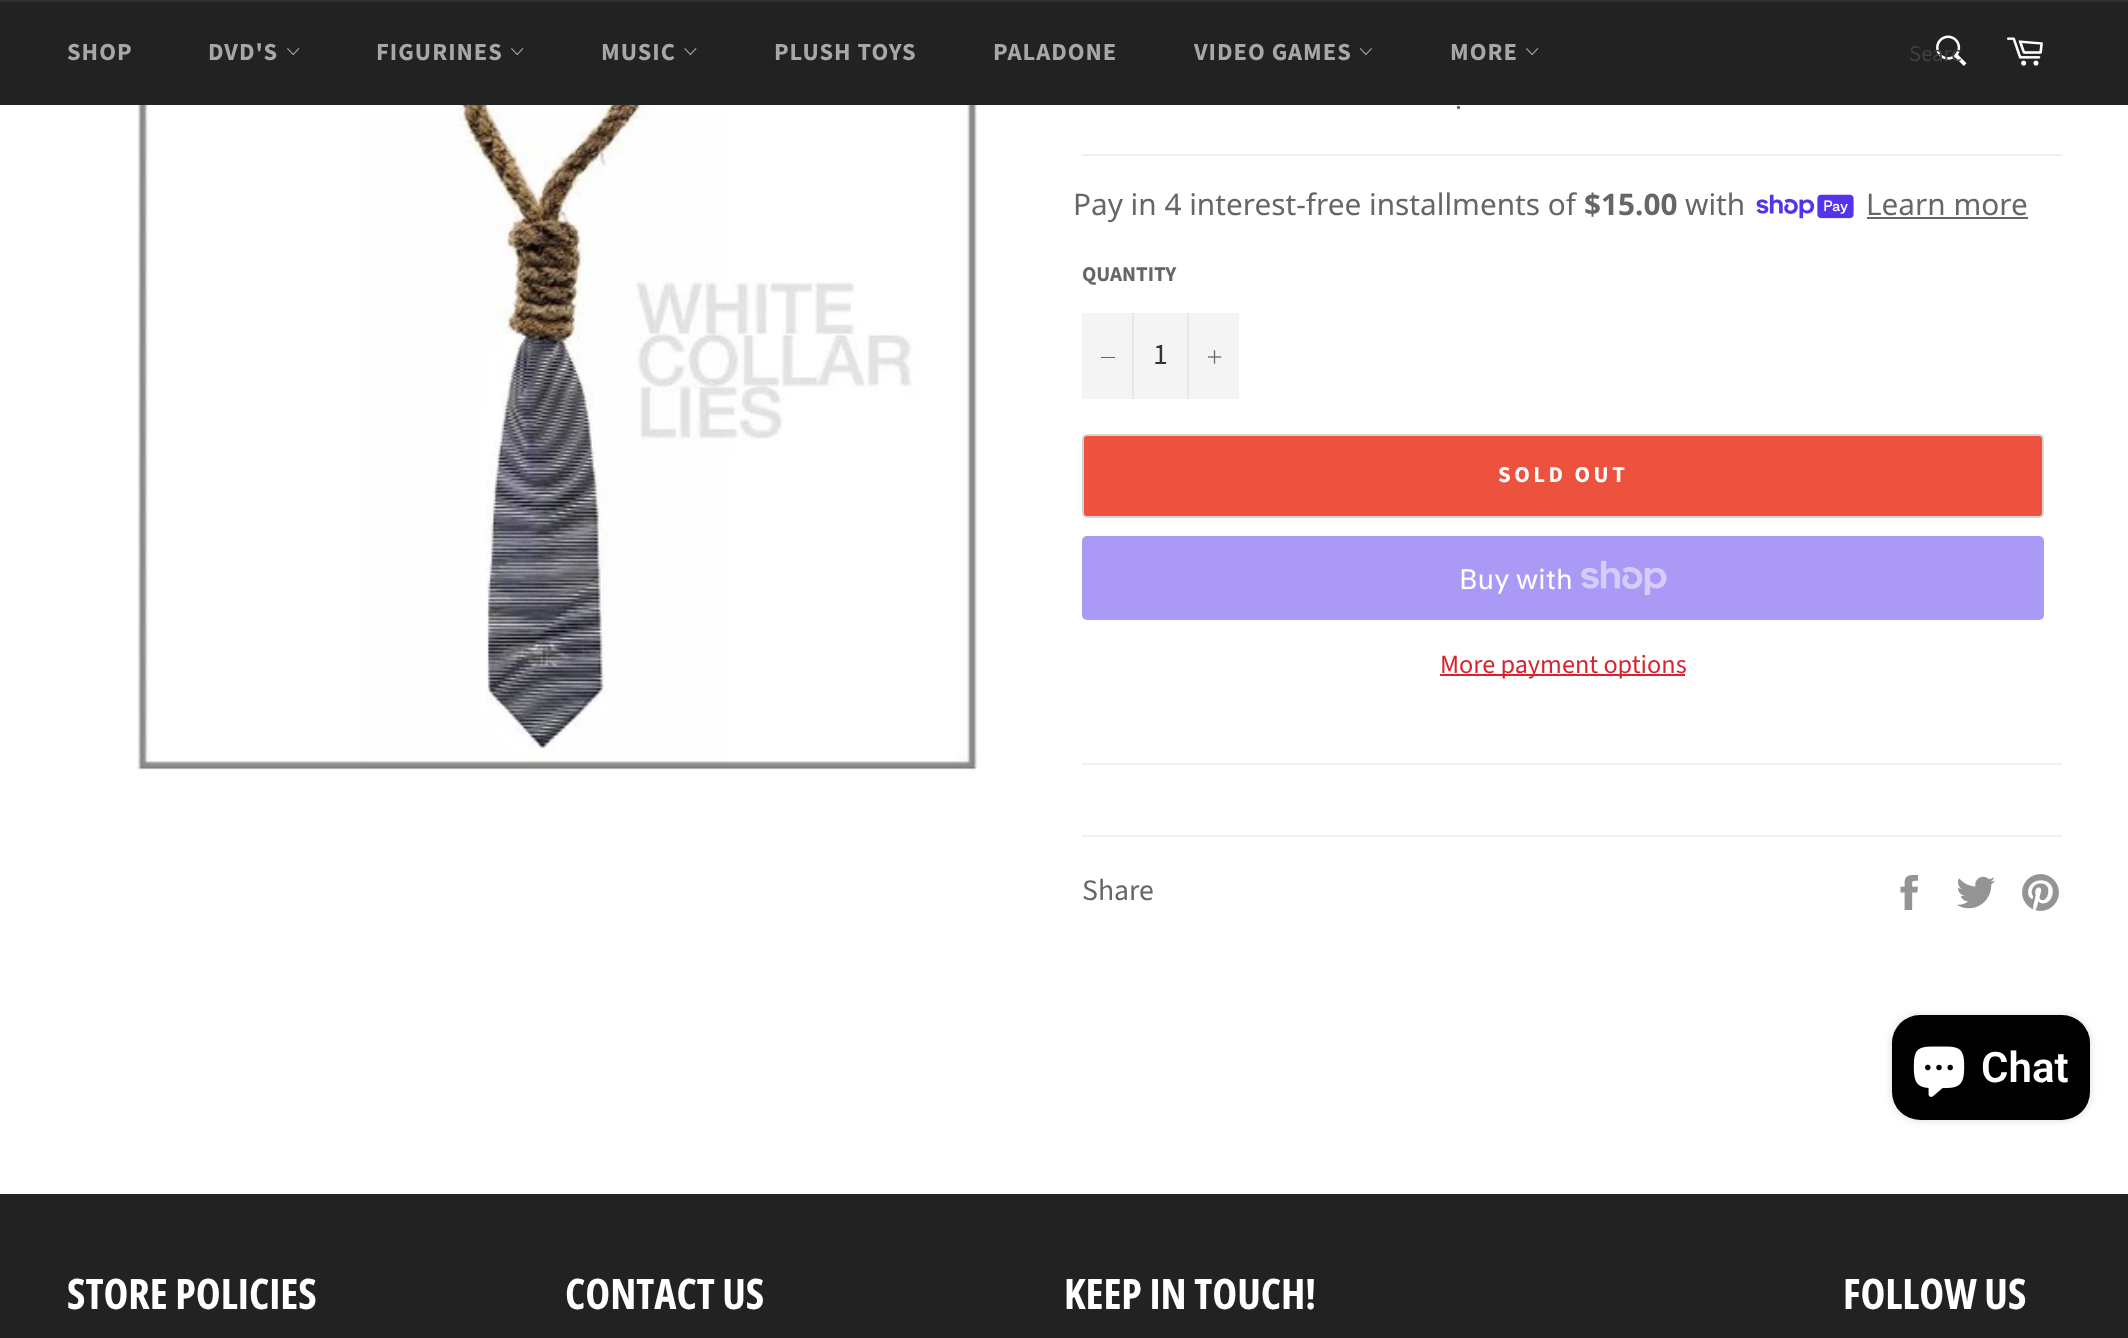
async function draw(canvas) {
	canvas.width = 2128;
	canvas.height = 1338;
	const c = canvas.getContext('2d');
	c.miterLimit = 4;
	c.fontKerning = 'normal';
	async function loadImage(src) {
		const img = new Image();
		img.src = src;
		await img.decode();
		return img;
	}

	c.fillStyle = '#fff';
	c.fillRect(0, 0, 2128, 1338);
	c.fillStyle = '#222';
	c.fillRect(0, 2, 2128, 103);
	c.fillStyle = '#2f2f2f';
	c.fillRect(0, 0, 2128, 2);
	c.letterSpacing = '1px';
	c.font = 'bold 24.5px Source Sans Pro';
	c.fillStyle = '#a7a7a7';
	c.fillText('SHOP', 67, 60);
	c.fillText('DVD\'S', 208, 60);
	c.drawImage(await loadImage('img1.png'), 287, 48, 13, 8);
	c.fillText('FIGURINES', 376, 60);
	c.drawImage(await loadImage('img1.png'), 511, 48, 13, 8);
	c.fillText('MUSIC', 601, 60);
	c.drawImage(await loadImage('img2.png'), 684, 48, 13, 8);
	for (const [text, x, y] of [
		['PLUSH TOYS', 774, 60],
		['PALADONE', 993, 60],
		['VIDEO GAMES', 1194, 60],
	]) {
		c.fillText(text, x, y);
	}
	c.drawImage(await loadImage('img3.png'), 1359, 48, 13, 8);
	c.fillText('MORE', 1450, 60);
	c.drawImage(await loadImage('img1.png'), 1526, 48, 13, 8);
	c.drawImage(await loadImage('img4.png'), 1936, 35, 31, 31);
	c.letterSpacing = '0px';
	c.font = '22.75px Source Sans Pro';
	c.fillStyle = '#404040';
	c.fillText('Searc', 1909, 61);
	c.drawImage(await loadImage('img5.png'), 2006, 37, 37, 29);
	c.drawImage(await loadImage('img6.png'), 136, 105, 841, 665);
	c.font = '28px Source Sans Pro';
	c.fillStyle = '#666';
	c.fillText('.', 1455, 109);
	c.fillStyle = '#f0f0f0';
	c.fillRect(1082, 154, 980, 2);
	c.font = '29.75px Noto Sans';
	c.fillStyle = '#666';
	c.fillText('Pay in 4 interest-free installments of', 1073, 215);
	c.font = 'bold 29.75px Noto Sans';
	c.fillText('$15.00', 1584, 215);
	c.font = '29.75px Noto Sans';
	c.fillText('with', 1685, 215);
	c.drawImage(await loadImage('img7.png'), 1756, 194, 98, 25);
	c.fillText('Learn more', 1866, 215);
	c.fillRect(1867, 217, 161, 2);
	c.font = 'bold 21px Source Sans Pro';
	c.fillText('QUANTITY', 1082, 281);
	for (const [x, y, w, h, color] of [
		[1082, 313, 157, 86, '#f4f4f4'],
		[1132, 313, 2, 86, '#e7e7e7'],
		[1101, 357, 14, 1, '#666'],
	]) {
		c.fillStyle = color;
		c.fillRect(x, y, w, h);
	}
	c.font = '29.75px Source Sans Pro';
	c.fillStyle = '#333';
	c.fillText('1', 1153, 364);
	c.fillStyle = '#e7e7e7';
	c.fillRect(1187, 313, 2, 86);
	c.drawImage(await loadImage('img8.png'), 1208, 350, 14, 14);
	c.fillStyle = '#ec523e';
	c.beginPath();
	c.roundRect(1083, 435, 960, 82, 4);
	c.fill();
	c.strokeStyle = '#d5d5d5';
	c.lineWidth = 2;
	c.stroke();
	c.letterSpacing = '3.5px';
	c.font = 'bold 22.75px Source Sans Pro';
	c.fillStyle = '#fff';
	c.fillText('SOLD OUT', 1498, 482);
	c.fillStyle = '#aa99f5';
	c.beginPath();
	c.roundRect(1082, 536, 962, 84, 5);
	c.fill();
	c.letterSpacing = '0px';
	c.font = '28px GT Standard';
	c.fillStyle = '#fff';
	c.fillText('Buy with', 1459, 589);
	c.drawImage(await loadImage('img9.png'), 1581, 560, 86, 35);
	c.fillStyle = '#d8232f';
	c.fillRect(1440, 674, 245, 2);
	c.font = '26.25px Source Sans Pro';
	c.fillText('More payment options', 1440, 673);
	c.fillStyle = '#f0f0f0';
	c.fillRect(1082, 763, 980, 2);
	c.fillRect(1082, 835, 980, 2);
	c.font = '29.75px Source Sans Pro';
	c.fillStyle = '#666';
	c.fillText('Share', 1082, 900);
	c.drawImage(await loadImage('img10.png'), 1900, 875, 18, 35);
	c.drawImage(await loadImage('img11.png'), 1956, 876, 39, 33);
	c.drawImage(await loadImage('img12.png'), 2022, 874, 37, 37);
	c.fillStyle = '#222';
	c.fillRect(0, 1194, 2128, 144);
	c.font = 'bold 42px Open Sans Condensed';
	c.fillStyle = '#fff';
	for (const [text, x, y] of [
		['STORE POLICIES', 67, 1309],
		['CONTACT US', 565, 1309],
		['KEEP IN TOUCH!', 1064, 1309],
		['FOLLOW US', 1843, 1309],
	]) {
		c.fillText(text, x, y);
	}
	c.fillStyle = '#00000026';
	c.filter = 'blur(4.5px)';
	c.beginPath();
	c.roundRect(1892, 1015, 198, 105, 28);
	c.fill();
	c.filter = 'none';
	c.fillStyle = '#000';
	c.beginPath();
	c.roundRect(1892, 1015, 198, 105, 28);
	c.fill();
	c.drawImage(await loadImage('img13.png'), 1913, 1046, 52, 51);
	c.font = '600 42px Roboto';
	c.fillStyle = '#fff';
	c.fillText('Chat', 1981, 1082);
}

draw(document.querySelector('canvas'));
